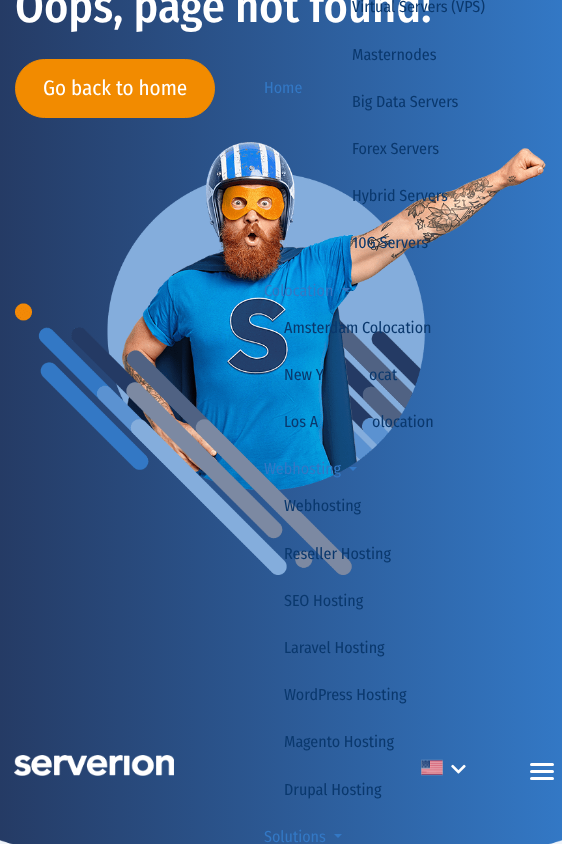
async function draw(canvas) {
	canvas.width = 562;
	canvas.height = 844;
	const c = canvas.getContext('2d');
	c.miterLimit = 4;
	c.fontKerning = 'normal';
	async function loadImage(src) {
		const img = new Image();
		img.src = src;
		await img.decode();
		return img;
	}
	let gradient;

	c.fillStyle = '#fff';
	c.fillRect(0, 0, 562, 844);
	gradient = c.createLinearGradient(0, 380, 562, 380);
	gradient.addColorStop(0, '#253b65');
	gradient.addColorStop(1, '#3378c5');
	c.fillStyle = gradient;
	c.fillRect(0, 0, 562, 844);
	c.font = '500 46px Fira Sans Condensed';
	c.fillStyle = '#fff';
	c.fillText('Oops, page not found!', 15, 22);
	c.fillStyle = '#f28b00';
	c.beginPath();
	c.roundRect(15.5, 59.5, 199, 58, 29);
	c.fill();
	c.strokeStyle = '#f28b00';
	c.stroke();
	c.font = '21px Fira Sans Condensed';
	c.fillStyle = '#fff';
	c.fillText('Go back to home', 43, 95);
	c.drawImage(await loadImage('img1.png'), 15, 142, 531, 433);
	c.drawImage(await loadImage('img2.png'), 0, 840, 562, 4);
	c.drawImage(await loadImage('img3.png'), 14, 755, 160, 21);
	c.font = '16px Fira Sans Condensed';
	c.fillStyle = '#3378c5';
	c.fillText('Home', 264, 93);
	c.fillStyle = '#0a386d';
	for (const [text, x, y] of [
		['Virtual Servers (VPS)', 352, 12],
		['Masternodes', 352, 60],
		['Big Data Servers', 352, 107],
		['Forex Servers', 352, 154],
		['Hybrid Servers', 352, 201],
		['10G Servers', 352, 248],
	]) {
		c.fillText(text, x, y);
	}
	c.fillStyle = '#3378c5';
	c.fillText('Colocation', 264, 296);
	c.beginPath();
	c.moveTo(342, 288);
	c.lineTo(350, 288);
	c.lineTo(346, 292);
	c.closePath();
	c.fill();
	c.fillStyle = '#0a386d';
	for (const [text, x, y] of [
		['Amsterdam Colocation', 284, 333],
		['New Y', 284, 380],
		['ocat', 369, 380],
		['Los A', 284, 427],
		['olocation', 372, 427],
	]) {
		c.fillText(text, x, y);
	}
	c.fillStyle = '#3378c5';
	c.fillText('Webhosting', 264, 474);
	c.beginPath();
	c.moveTo(349, 467);
	c.lineTo(357, 467);
	c.lineTo(353, 471);
	c.closePath();
	c.fill();
	c.fillStyle = '#0a386d';
	for (const [text, x, y] of [
		['Webhosting', 284, 511],
		['Reseller Hosting', 284, 559],
		['SEO Hosting', 284, 606],
		['Laravel Hosting', 284, 653],
		['WordPress Hosting', 284, 700],
		['Magento Hosting', 284, 747],
		['Drupal Hosting', 284, 795],
	]) {
		c.fillText(text, x, y);
	}
	c.fillStyle = '#3378c5';
	c.fillText('Solutions', 264, 842);
	c.beginPath();
	c.moveTo(334, 834);
	c.lineTo(342, 834);
	c.lineTo(338, 838);
	c.closePath();
	c.fill();
	c.drawImage(await loadImage('img4.png'), 421, 759, 22, 17);
	c.drawImage(await loadImage('img5.png'), 451, 764, 15, 10);
	c.fillStyle = '#fff';
	c.beginPath();
	c.roundRect(530, 770, 24, 3, 1.5);
	c.fill();
	c.beginPath();
	c.roundRect(530, 763, 24, 3, 1.5);
	c.fill();
	c.beginPath();
	c.roundRect(530, 777, 24, 3, 1.5);
	c.fill();
}

draw(document.querySelector('canvas'));
